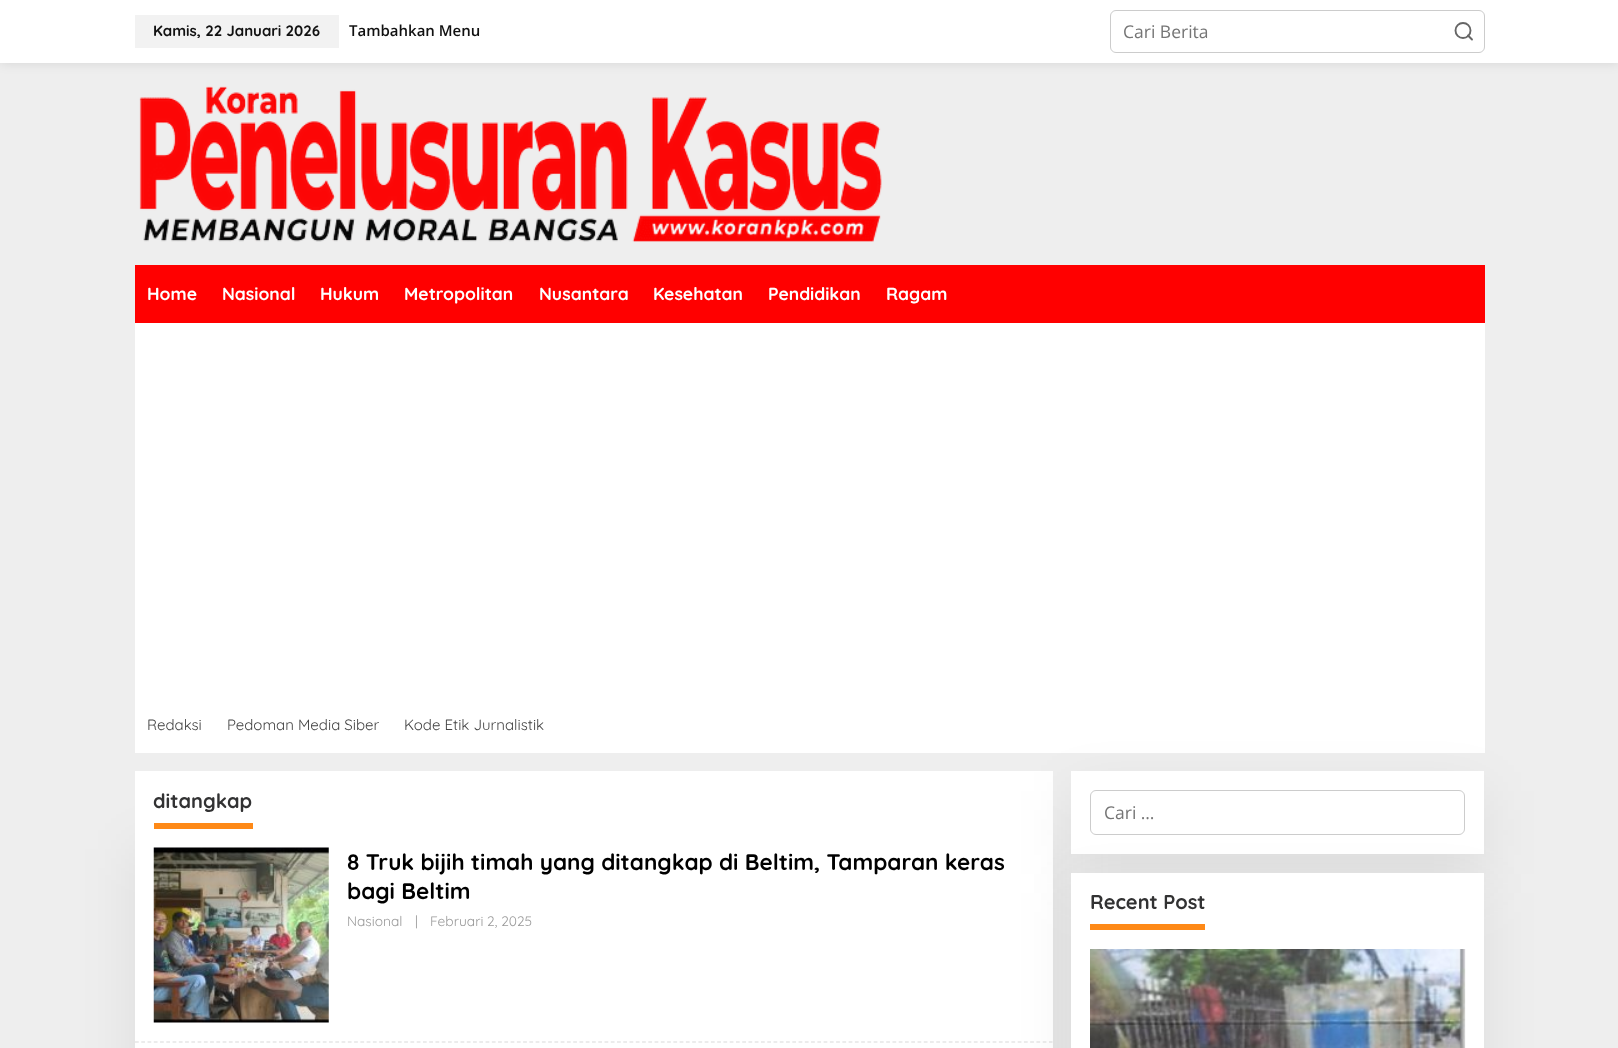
async function draw(canvas) {
	canvas.width = 1618;
	canvas.height = 1048;
	const c = canvas.getContext('2d');
	c.miterLimit = 4;
	c.fontKerning = 'normal';
	async function loadImage(src) {
		const img = new Image();
		img.src = src;
		await img.decode();
		return img;
	}

	c.fillStyle = '#eee';
	c.fillRect(0, 0, 1618, 1048);
	c.fillStyle = '#0000001a';
	c.filter = 'blur(6px)';
	c.beginPath();
	c.rect(0, 0, 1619, 63);
	c.fill();
	c.filter = 'none';
	c.fillStyle = '#fff';
	c.fillRect(0, 0, 1618, 63);
	c.fillStyle = '#f2f2f2';
	c.fillRect(135, 15, 204, 33);
	c.font = 'bold 15px Quicksand';
	c.fillStyle = '#111';
	c.fillText('Kamis, 22 Januari 2026', 153, 36);
	c.font = '600 15px Open Sans';
	c.fillText('Tambahkan Menu', 349, 36);
	c.beginPath();
	c.roundRect(1110.5, 10.5, 374, 42, 5.5);
	c.strokeStyle = '#ccc';
	c.stroke();
	c.font = '17.5px Open Sans';
	c.fillStyle = '#757575';
	c.fillText('Cari Berita', 1123, 38);
	c.beginPath();
	c.arc(1463, 30.5, 7.5, 0, 2 * Math.PI);
	c.strokeStyle = '#666';
	c.lineWidth = 1.9;
	c.stroke();
	c.beginPath();
	c.moveTo(1472, 39.5);
	c.lineTo(1468, 35.5);
	c.lineCap = 'round';
	c.lineJoin = 'round';
	c.stroke();
	c.drawImage(await loadImage('img1.png'), 139, 86, 743, 156);
	c.fillStyle = '#f00';
	c.fillRect(135, 265, 1350, 58);
	c.font = 'bold 17.5px Quicksand';
	c.fillStyle = '#fff';
	for (const [text, x, y] of [
		['Home', 147, 300],
		['Nasional', 222, 300],
		['Hukum', 320, 300],
		['Metropolitan', 404, 300],
		['Nusantara', 539, 300],
		['Kesehatan', 653, 300],
		['Pendidikan', 768, 300],
		['Ragam', 886, 300],
	]) {
		c.fillText(text, x, y);
	}
	c.fillRect(135, 323, 1350, 430);
	c.font = '15px Quicksand';
	c.fillStyle = '#444';
	for (const [text, x, y] of [
		['Redaksi', 147, 730],
		['Pedoman Media Siber', 227, 730],
		['Kode Etik Jurnalistik', 404, 730],
	]) {
		c.fillText(text, x, y);
	}
	c.fillStyle = '#00000012';
	c.filter = 'blur(28px)';
	c.beginPath();
	c.rect(135, 849, 918, 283);
	c.fill();
	c.filter = 'none';
	c.fillStyle = '#fff';
	c.fillRect(135, 771, 918, 277);
	c.fillStyle = '#fe8917';
	c.fillRect(154, 823, 99, 6);
	c.font = 'bold 20px Quicksand';
	c.fillStyle = '#323233';
	c.fillText('ditangkap', 153, 808);
	c.beginPath();
	c.moveTo(135, 1042);
	c.lineTo(1052.5, 1042);
	c.strokeStyle = '#d9d9d9';
	c.lineWidth = 1.2;
	c.lineCap = 'butt';
	c.lineJoin = 'miter';
	c.setLineDash([3.75, 2.51]);
	c.stroke();
	c.drawImage(await loadImage('img2.png'), 153, 847, 176, 176);
	c.font = 'bold 22.5px Quicksand';
	c.fillStyle = '#000';
	c.fillText('8 Truk bijih timah yang ditangkap di Beltim, Tamparan keras', 347, 870);
	c.fillText('bagi Beltim', 347, 899);
	c.font = '13.75px Quicksand';
	c.fillStyle = '#999';
	for (const [text, x, y] of [
		['Nasional', 347, 926],
		['|', 415, 926],
		['Februari 2, 2025', 430, 926],
	]) {
		c.fillText(text, x, y);
	}
	c.fillStyle = '#00000012';
	c.filter = 'blur(28px)';
	c.beginPath();
	c.rect(1071, 791, 413, 83);
	c.fill();
	c.filter = 'none';
	c.fillStyle = '#fff';
	c.fillRect(1071, 771, 413, 83);
	c.beginPath();
	c.roundRect(1090.5, 790.5, 374, 44, 5.5);
	c.strokeStyle = '#ccc';
	c.lineWidth = 1;
	c.setLineDash([]);
	c.stroke();
	c.fillStyle = '#00000012';
	c.filter = 'blur(28px)';
	c.beginPath();
	c.rect(1071, 893, 413, 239);
	c.fill();
	c.filter = 'none';
	c.font = '17.5px Open Sans';
	c.fillStyle = '#757575';
	c.fillText('Cari …', 1104, 819);
	c.fillStyle = '#fff';
	c.fillRect(1071, 873, 413, 175);
	c.fillStyle = '#fe8917';
	c.fillRect(1090, 924, 115, 6);
	c.font = 'bold 20px Quicksand';
	c.fillStyle = '#323233';
	c.fillText('Recent Post', 1090, 909);
	c.drawImage(await loadImage('img3.png'), 1090, 949, 376, 99);
}

draw(document.querySelector('canvas'));
